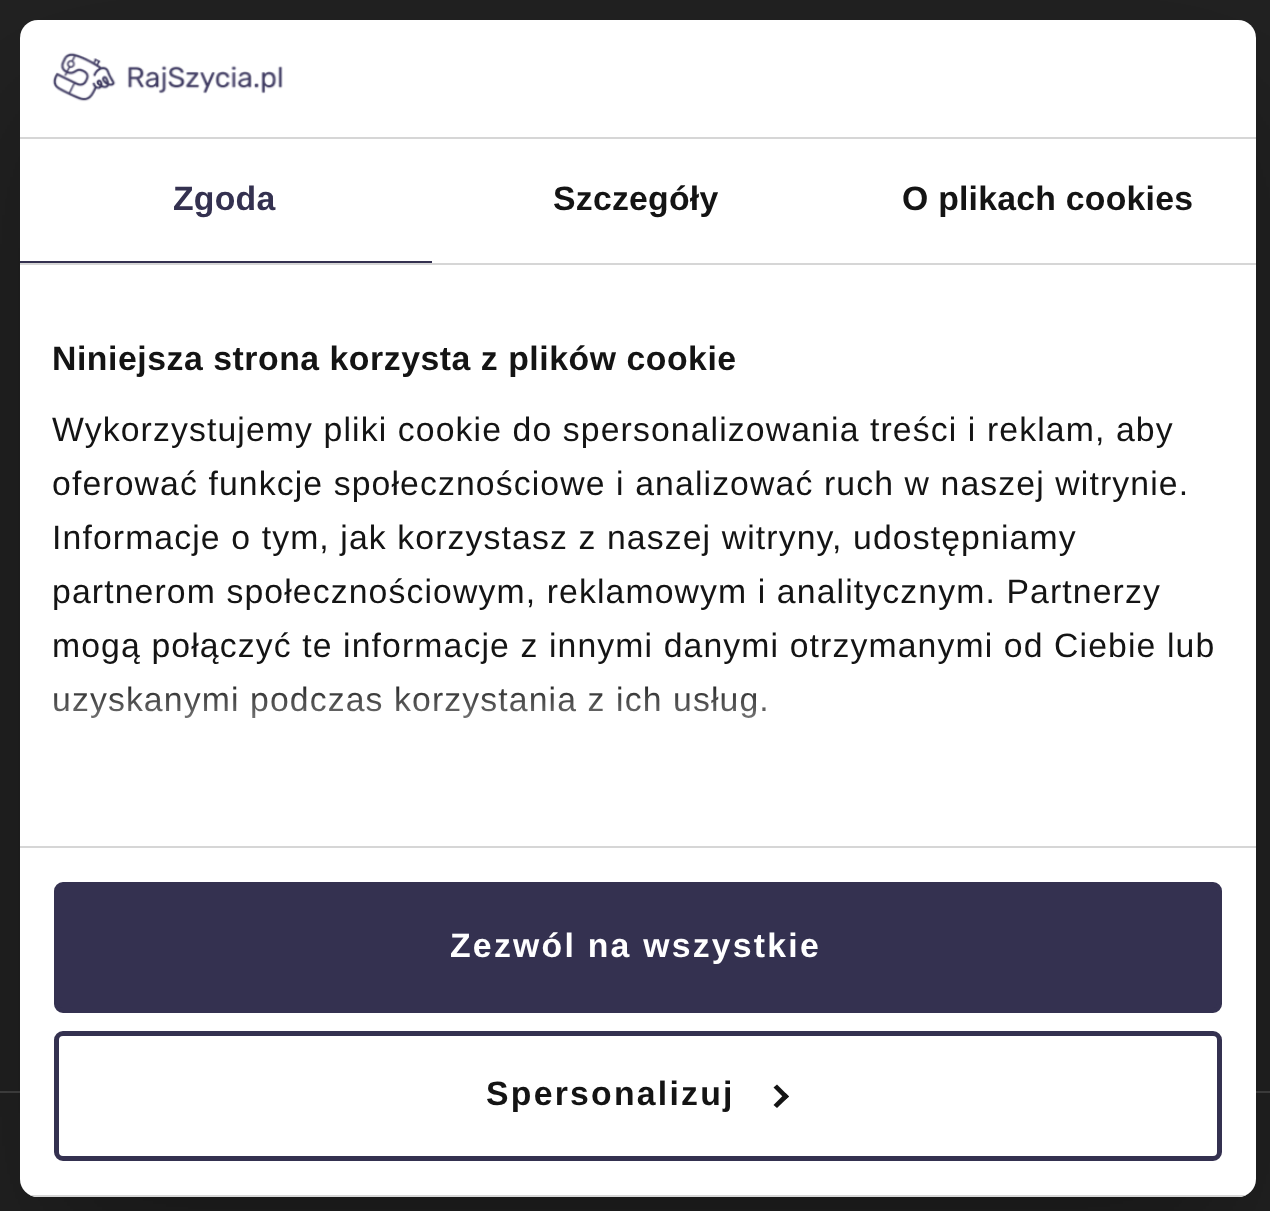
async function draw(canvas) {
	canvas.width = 1270;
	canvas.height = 1211;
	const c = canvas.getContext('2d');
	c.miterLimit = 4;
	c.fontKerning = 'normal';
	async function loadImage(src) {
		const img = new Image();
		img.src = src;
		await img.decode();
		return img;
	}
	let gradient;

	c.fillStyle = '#222';
	c.fillRect(0, 0, 1270, 1211);
	c.fillStyle = '#444';
	c.fillRect(0, 1091, 1270, 2);
	c.fillStyle = '#0000004d';
	c.filter = 'blur(76.5px)';
	c.beginPath();
	c.roundRect(20, 92, 1236, 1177, 18);
	c.fill();
	c.filter = 'none';
	c.fillStyle = '#fff';
	c.beginPath();
	c.roundRect(20, 20, 1236, 1177, 18);
	c.fill();
	c.fillStyle = '#d6d6d6';
	c.fillRect(20, 137, 1236, 2);
	c.drawImage(await loadImage('img1.png'), 52, 52, 231, 50);
	c.fillRect(20, 263, 1236, 2);
	c.fillStyle = '#343150';
	c.fillRect(20, 261, 412, 2);
	c.letterSpacing = '0.25px';
	c.font = 'bold 33.75px Liberation Sans';
	c.fillText('Zgoda', 173, 210);
	c.fillStyle = '#141414';
	c.fillText('Szczegóły', 553, 210);
	c.fillText('O plikach cookies', 902, 210);
	c.fillStyle = '#d6d6d6';
	c.fillRect(20, 846, 1236, 2);
	c.letterSpacing = '0.55px';
	c.fillStyle = '#141414';
	c.fillText('Niniejsza strona korzysta z plików cookie', 52, 370);
	c.letterSpacing = '1.12px';
	c.font = '33.75px Liberation Sans';
	for (const [text, x, y] of [
		['Wykorzystujemy pliki cookie do spersonalizowania treści i reklam, aby', 52, 441],
		['oferować funkcje społecznościowe i analizować ruch w naszej witrynie.', 52, 495],
		['Informacje o tym, jak korzystasz z naszej witryny, udostępniamy', 52, 549],
		['partnerom społecznościowym, reklamowym i analitycznym. Partnerzy', 52, 603],
		['mogą połączyć te informacje z innymi danymi otrzymanymi od Ciebie lub', 52, 657],
		['uzyskanymi podczas korzystania z ich usług.', 52, 711],
	]) {
		c.fillText(text, x, y);
	}
	gradient = c.createLinearGradient(622, 845, 622, 676);
	gradient.addColorStop(0, '#fff');
	gradient.addColorStop(0.5, '#ffffffcc');
	gradient.addColorStop(1, '#ffffff00');
	c.fillStyle = gradient;
	c.fillRect(53, 686, 713, 32);
	c.save();
	c.beginPath();
	c.roundRect(20, 20, 1236, 1177, 18);
	c.clip();
	c.fillStyle = '#d6d6d6';
	c.fillRect(30, 1195, 1216, 2);
	c.restore();
	c.fillStyle = '#343150';
	c.beginPath();
	c.roundRect(56.5, 884.5, 1163, 126, 6.5);
	c.fill();
	c.strokeStyle = '#343150';
	c.lineWidth = 5;
	c.stroke();
	c.letterSpacing = '2.25px';
	c.font = 'bold 33.75px Liberation Sans';
	c.fillStyle = '#fff';
	c.fillText('Zezwól na wszystkie', 450, 957);
	c.beginPath();
	c.roundRect(56.5, 1033.5, 1163, 125, 6.5);
	c.stroke();
	c.fillStyle = '#141414';
	c.fillText('Spersonalizuj', 486, 1105);
	c.beginPath();
	c.moveTo(777, 1084.5);
	c.lineTo(789, 1096.5);
	c.lineTo(785.5, 1099.5);
	c.lineTo(773.5, 1087.5);
	c.closePath();
	c.fill();
	c.beginPath();
	c.moveTo(785.5, 1093);
	c.lineTo(789, 1096.5);
	c.lineTo(777, 1108);
	c.lineTo(773.5, 1105);
	c.closePath();
	c.fill();
}

draw(document.querySelector('canvas'));
